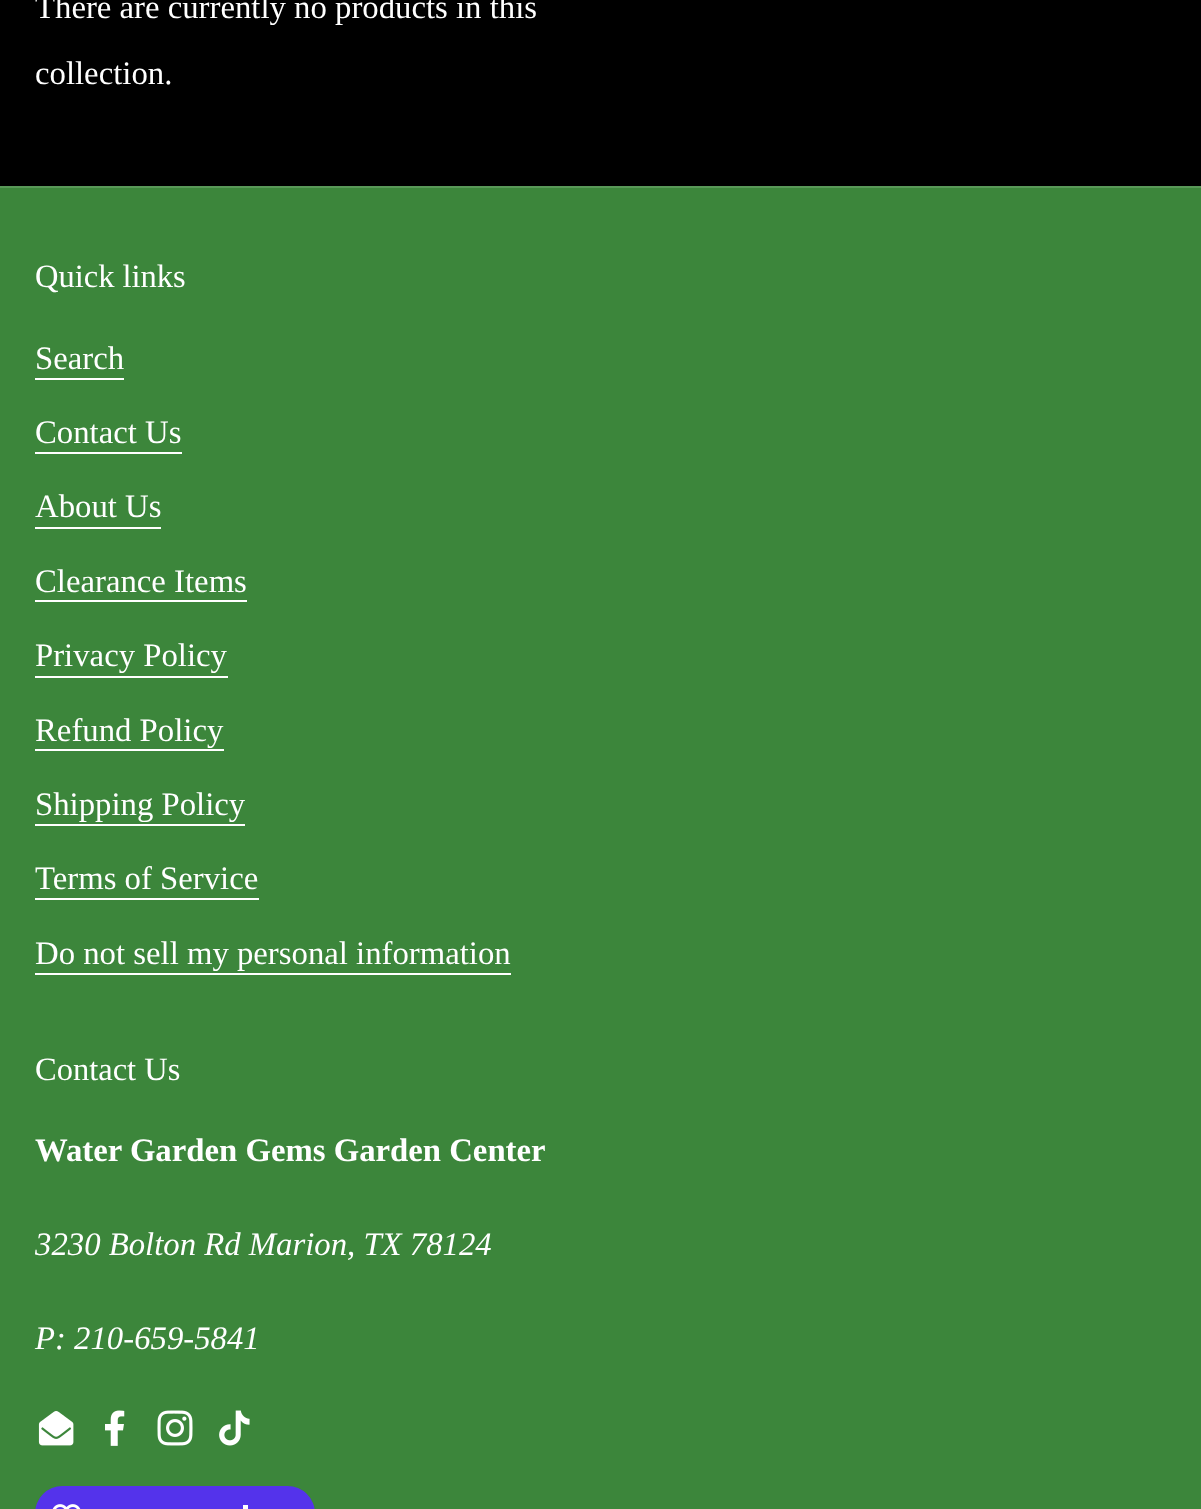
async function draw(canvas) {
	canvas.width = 1201;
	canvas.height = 1509;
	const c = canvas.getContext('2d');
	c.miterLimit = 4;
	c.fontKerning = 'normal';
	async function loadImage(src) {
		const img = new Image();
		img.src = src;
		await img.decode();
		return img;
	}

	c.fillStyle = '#000';
	c.fillRect(0, 0, 1201, 1509);
	c.font = '32.75px Liberation Serif';
	c.fillStyle = '#fff';
	c.fillText('There are currently no products in this', 35, 18);
	c.fillText('collection.', 35, 84);
	c.fillStyle = '#3c863b';
	c.fillRect(0, 188, 1201, 1321);
	c.fillStyle = '#599858';
	c.fillRect(0, 186, 1201, 2);
	c.font = '32.5px Liberation Serif';
	c.fillStyle = '#fff';
	c.fillText('Quick links', 35, 287);
	c.font = '32.75px Liberation Serif';
	c.fillText('Search', 35, 369);
	c.fillRect(35, 378, 89, 2);
	c.fillText('Contact Us', 35, 443);
	c.fillRect(35, 452, 147, 2);
	c.fillText('About Us', 35, 517);
	c.fillRect(35, 527, 126, 2);
	c.fillText('Clearance Items', 35, 592);
	c.fillRect(35, 600, 212, 2);
	c.fillText('Privacy Policy', 35, 666);
	c.fillRect(35, 676, 193, 2);
	c.fillText('Refund Policy', 35, 741);
	c.fillRect(35, 749, 189, 2);
	c.fillText('Shipping Policy', 35, 815);
	c.fillRect(35, 824, 210, 2);
	c.fillText('Terms of Service', 35, 889);
	c.fillRect(35, 898, 224, 2);
	c.fillText('Do not sell my personal information', 35, 964);
	c.fillRect(35, 973, 476, 2);
	c.font = '32.5px Liberation Serif';
	c.fillText('Contact Us', 35, 1080);
	c.font = 'bold 32.75px Liberation Serif';
	c.fillText('Water Garden Gems Garden Center', 35, 1161);
	c.font = 'italic 32.75px Liberation Serif';
	c.fillText('3230 Bolton Rd Marion, TX 78124', 35, 1255);
	c.fillText('P: 210-659-5841', 35, 1349);
	c.drawImage(await loadImage('img1.png'), 38, 1411, 36, 35);
	c.drawImage(await loadImage('img2.png'), 105, 1410, 20, 36);
	c.drawImage(await loadImage('img3.png'), 157, 1410, 36, 36);
	c.drawImage(await loadImage('img4.png'), 219, 1410, 31, 36);
	c.fillStyle = '#5433eb';
	c.beginPath();
	c.roundRect(35, 1486, 280, 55, 31.5);
	c.fill();
	c.drawImage(await loadImage('img5.png'), 52, 1504, 29, 5);
	c.fillStyle = '#fff';
	c.fillRect(243, 1505, 5, 4);
}

draw(document.querySelector('canvas'));
